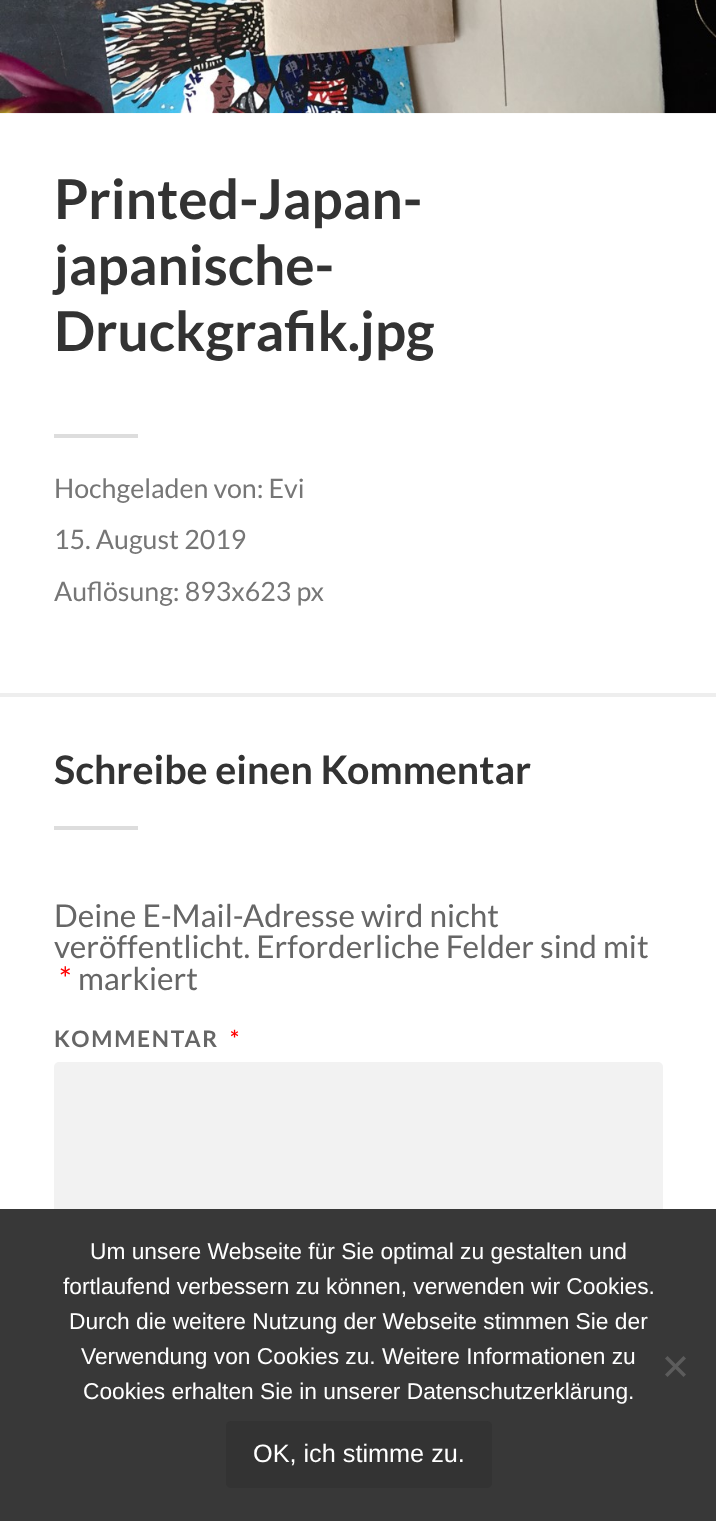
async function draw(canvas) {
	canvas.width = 716;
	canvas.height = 1521;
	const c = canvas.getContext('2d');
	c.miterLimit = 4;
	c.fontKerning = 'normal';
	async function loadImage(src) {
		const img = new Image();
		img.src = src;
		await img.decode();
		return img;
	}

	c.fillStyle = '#fff';
	c.fillRect(0, 0, 716, 1521);
	c.drawImage(await loadImage('img1.png'), 0, 0, 716, 114);
	c.font = 'bold 55px Lato';
	c.fillStyle = '#333';
	for (const [text, x, y] of [
		['Printed-Japan-', 54, 219],
		['japanische-', 54, 285],
		['Druckgrafik.jpg', 54, 351],
	]) {
		c.fillText(text, x, y);
	}
	c.fillStyle = '#ddd';
	c.fillRect(54, 434, 84, 4);
	c.font = '26.75px Lato';
	c.fillStyle = '#767676';
	for (const [text, x, y] of [
		['Hochgeladen von: Evi', 54, 498],
		['15. August 2019', 54, 549],
		['Auflösung: 893x623 px', 54, 601],
	]) {
		c.fillText(text, x, y);
	}
	c.fillStyle = '#eee';
	c.fillRect(0, 693, 716, 4);
	c.font = 'bold 39.4px Lato';
	c.fillStyle = '#333';
	c.fillText('Schreibe einen Kommentar', 54, 784);
	c.fillStyle = '#ddd';
	c.fillRect(54, 826, 84, 4);
	c.font = '31.5px Lato';
	c.fillStyle = '#666';
	c.fillText('Deine E-Mail-Adresse wird nicht', 54, 927);
	c.fillText('veröffentlicht. Erforderliche Felder sind mit', 54, 958);
	c.fillStyle = '#f00';
	c.fillText('*', 59, 990);
	c.fillStyle = '#666';
	c.fillText('markiert', 78, 990);
	c.letterSpacing = '1.75px';
	c.font = 'bold 22.75px Lato';
	c.fillText('KOMMENTAR', 54, 1047);
	c.fillStyle = '#f00';
	c.fillText('*', 230, 1047);
	c.fillStyle = '#f2f2f2';
	c.beginPath();
	c.roundRect(54, 1062, 609, 315, 5);
	c.fill();
	c.fillStyle = '#383838';
	c.fillRect(0, 1209, 716, 312);
	c.letterSpacing = '0px';
	c.font = '22.75px Liberation Sans';
	c.fillStyle = '#fff';
	for (const [text, x, y] of [
		['Um unsere Webseite für Sie optimal zu gestalten und', 90, 1259],
		['fortlaufend verbessern zu können, verwenden wir Cookies.', 63, 1294],
		['Durch die weitere Nutzung der Webseite stimmen Sie der', 69, 1329],
		['Verwendung von Cookies zu. Weitere Informationen zu', 81, 1364],
		['Cookies erhalten Sie in unserer Datenschutzerklärung.', 83, 1399],
	]) {
		c.fillText(text, x, y);
	}
	c.fillStyle = '#5c5c5c';
	c.beginPath();
	c.moveTo(683.5, 1356);
	c.lineTo(686, 1358.5);
	c.lineTo(667.5, 1377);
	c.lineTo(665, 1374.5);
	c.closePath();
	c.fill();
	c.beginPath();
	c.moveTo(665, 1358.5);
	c.lineTo(667.5, 1356);
	c.lineTo(686, 1374.5);
	c.lineTo(683.5, 1377);
	c.closePath();
	c.fill();
	c.fillStyle = '#333';
	c.beginPath();
	c.roundRect(226, 1421, 266, 67, 5);
	c.fill();
	c.font = '25.25px Liberation Sans';
	c.fillStyle = '#fff';
	c.fillText('OK, ich stimme zu.', 253, 1462);
}

draw(document.querySelector('canvas'));
